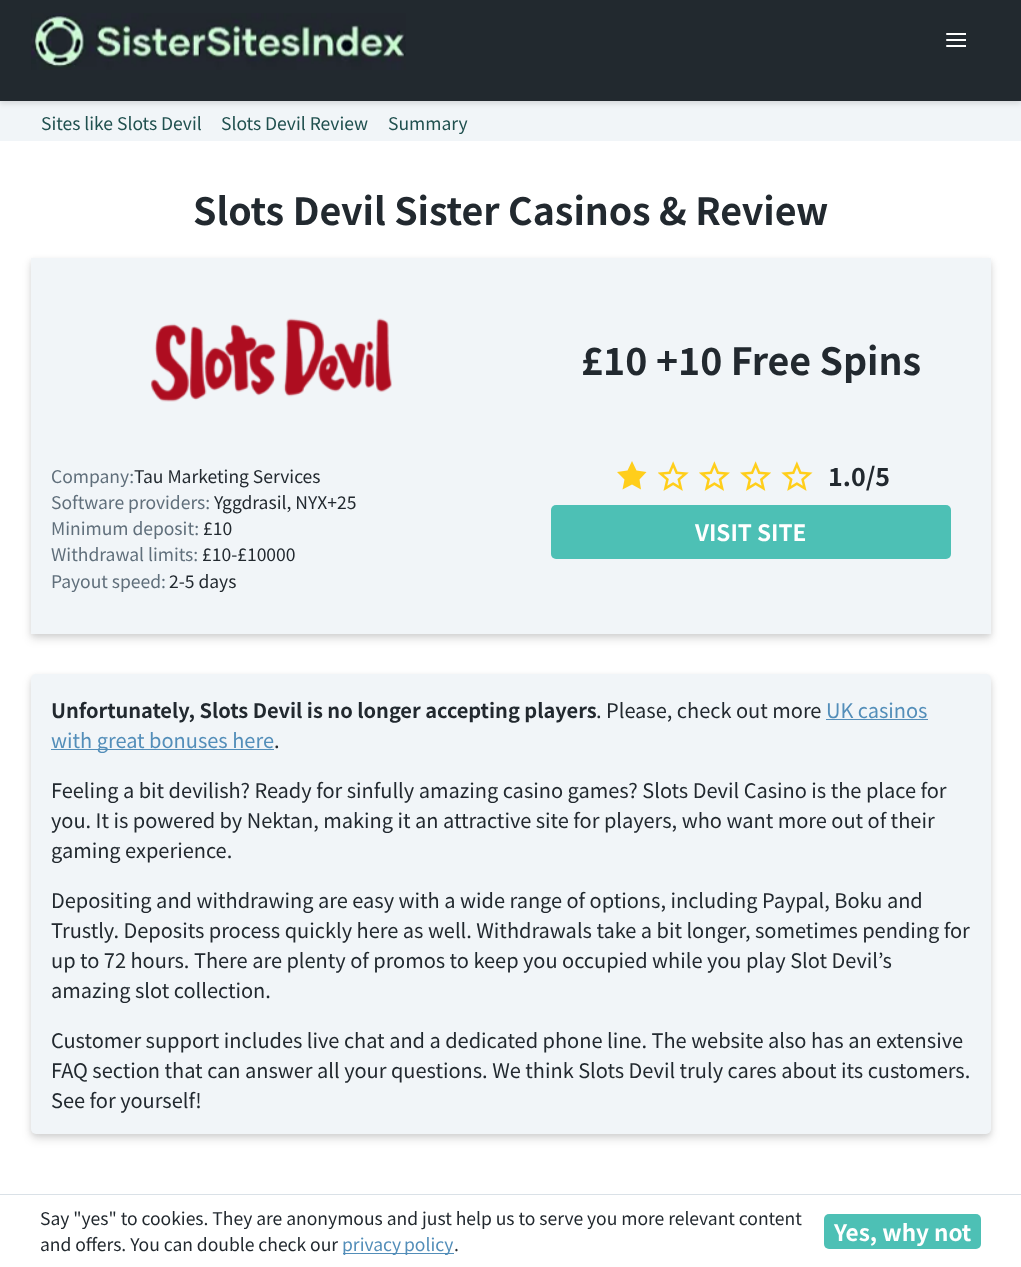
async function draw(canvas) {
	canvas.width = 1021;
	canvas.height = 1267;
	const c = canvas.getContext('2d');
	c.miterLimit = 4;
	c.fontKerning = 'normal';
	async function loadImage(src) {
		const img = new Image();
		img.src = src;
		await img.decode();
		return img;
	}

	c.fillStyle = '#fff';
	c.fillRect(0, 0, 1021, 1267);
	c.fillStyle = '#f1f5f8';
	c.fillRect(0, 101, 1021, 40);
	c.fillStyle = '#0000001a';
	c.filter = 'blur(2.5px)';
	c.beginPath();
	c.rect(0, 3, 1021, 101);
	c.fill();
	c.filter = 'none';
	c.fillStyle = '#22292f';
	c.fillRect(0, 0, 1021, 101);
	c.drawImage(await loadImage('img1.png'), 31, 13, 375, 57);
	c.drawImage(await loadImage('img2.png'), 946, 33, 20, 14);
	c.font = '100 17.5px Noto Sans JP';
	c.fillStyle = '#20504f';
	for (const [text, x, y] of [
		['Sites like Slots Devil', 41, 130],
		['Slots Devil Review', 221, 130],
		['Summary', 388, 130],
	]) {
		c.fillText(text, x, y);
	}
	c.font = '100 37.5px "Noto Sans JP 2"';
	c.fillStyle = '#22292f';
	c.fillText('Slots Devil Sister Casinos & Review', 193, 225);
	c.fillStyle = '#00000014';
	c.filter = 'blur(2.5px)';
	c.beginPath();
	c.rect(31, 260, 960, 376);
	c.fill();
	c.filter = 'none';
	c.fillStyle = '#0000001f';
	c.filter = 'blur(5px)';
	c.beginPath();
	c.rect(31, 263, 960, 376);
	c.fill();
	c.filter = 'none';
	c.fillStyle = '#f1f5f8';
	c.fillRect(31, 258, 960, 376);
	c.drawImage(await loadImage('img3.png'), 150, 318, 242, 84);
	c.fillStyle = '#22292f';
	c.fillText('£10 +10 Free Spins', 581, 375);
	c.font = '100 17.5px Noto Sans JP';
	c.fillStyle = '#606f7b';
	c.fillText('Company:', 51, 483);
	c.fillStyle = '#22292f';
	c.fillText('Tau Marketing Services', 134, 483);
	c.fillStyle = '#606f7b';
	c.fillText('Software providers:', 51, 509);
	c.fillStyle = '#22292f';
	c.fillText('Yggdrasil, NYX+25', 214, 509);
	c.fillStyle = '#606f7b';
	c.fillText('Minimum deposit:', 51, 535);
	c.fillStyle = '#22292f';
	c.fillText('£10', 203, 535);
	c.fillStyle = '#606f7b';
	c.fillText('Withdrawal limits:', 51, 561);
	c.fillStyle = '#22292f';
	c.fillText('£10-£10000', 202, 561);
	c.fillStyle = '#606f7b';
	c.fillText('Payout speed:', 51, 588);
	c.fillStyle = '#22292f';
	c.fillText('2-5 days', 169, 588);
	c.fillStyle = '#ffce1b';
	c.beginPath();
	c.moveTo(632, 484.5);
	c.lineTo(622.5, 489.5);
	c.lineTo(624.5, 479.5);
	c.lineTo(617, 472);
	c.lineTo(627.5, 470.5);
	c.lineTo(632, 461);
	c.lineTo(636.5, 470.5);
	c.lineTo(646.5, 472);
	c.lineTo(639.5, 479.5);
	c.lineTo(641, 489.5);
	c.closePath();
	c.fill();
	c.drawImage(await loadImage('img4.png'), 658, 461, 31, 30);
	c.drawImage(await loadImage('img5.png'), 699, 461, 31, 30);
	c.drawImage(await loadImage('img6.png'), 740, 461, 31, 30);
	c.drawImage(await loadImage('img7.png'), 781, 461, 32, 30);
	c.font = '100 25px "Noto Sans JP 2"';
	c.fillStyle = '#22292f';
	c.fillText('1.0/5', 828, 486);
	c.fillStyle = '#4dc0b5';
	c.beginPath();
	c.roundRect(551, 505, 400, 54, 5);
	c.fill();
	c.font = '100 22.5px "Noto Sans JP 2"';
	c.fillStyle = '#fff';
	c.fillText('VISIT SITE', 695, 541);
	c.fillStyle = '#00000014';
	c.filter = 'blur(2.5px)';
	c.beginPath();
	c.roundRect(31, 676, 960, 460, 5);
	c.fill();
	c.filter = 'none';
	c.fillStyle = '#0000001f';
	c.filter = 'blur(5px)';
	c.beginPath();
	c.roundRect(31, 679, 960, 460, 5);
	c.fill();
	c.filter = 'none';
	c.fillStyle = '#f1f5f8';
	c.beginPath();
	c.roundRect(31, 674, 960, 460, 5);
	c.fill();
	c.font = '100 20px "Noto Sans JP 2"';
	c.fillStyle = '#22292f';
	c.fillText('Unfortunately, Slots Devil is no longer accepting players', 51, 718);
	c.font = '100 20px Noto Sans JP';
	c.fillText('. Please, check out more', 596, 718);
	c.fillStyle = '#538eb9';
	c.fillText('UK casinos', 826, 718);
	c.fillRect(826, 719, 102, 1);
	c.fillRect(51, 749, 223, 1);
	c.fillText('with great bonuses here', 51, 748);
	c.fillStyle = '#22292f';
	for (const [text, x, y] of [
		['.', 274, 748],
		['Feeling a bit devilish? Ready for sinfully amazing casino games? Slots Devil Casino is the place for', 51, 798],
		['you. It is powered by Nektan, making it an attractive site for players, who want more out of their', 51, 828],
		['gaming experience.', 51, 858],
		['Depositing and withdrawing are easy with a wide range of options, including Paypal, Boku and', 51, 908],
		['Trustly. Deposits process quickly here as well. Withdrawals take a bit longer, sometimes pending for', 51, 938],
		['up to 72 hours. There are plenty of promos to keep you occupied while you play Slot Devil’s', 51, 968],
		['amazing slot collection.', 51, 998],
		['Customer support includes live chat and a dedicated phone line. The website also has an extensive', 51, 1048],
		['FAQ section that can answer all your questions. We think Slots Devil truly cares about its customers.', 51, 1078],
		['See for yourself!', 51, 1108],
	]) {
		c.fillText(text, x, y);
	}
	c.fillStyle = '#dae1e7';
	c.fillRect(0, 1194, 1021, 1);
	c.font = '100 17.5px Noto Sans JP';
	c.fillStyle = '#22292f';
	c.fillText('Say "yes" to cookies. They are anonymous and just help us to serve you more relevant content', 40, 1225);
	c.fillText('and offers. You can double check our', 40, 1251);
	c.fillStyle = '#538eb9';
	c.fillRect(343, 1253, 111, 1);
	c.wordSpacing = '-1px';
	c.fillText('privacy policy', 342, 1251);
	c.wordSpacing = '0px';
	c.fillStyle = '#22292f';
	c.fillText('.', 454, 1251);
	c.fillStyle = '#4dc0b5';
	c.beginPath();
	c.roundRect(824, 1214, 157, 35, 5);
	c.fill();
	c.font = '100 22.5px "Noto Sans JP 2"';
	c.fillStyle = '#fff';
	c.fillText('Yes, why not', 834, 1241);
}

draw(document.querySelector('canvas'));
